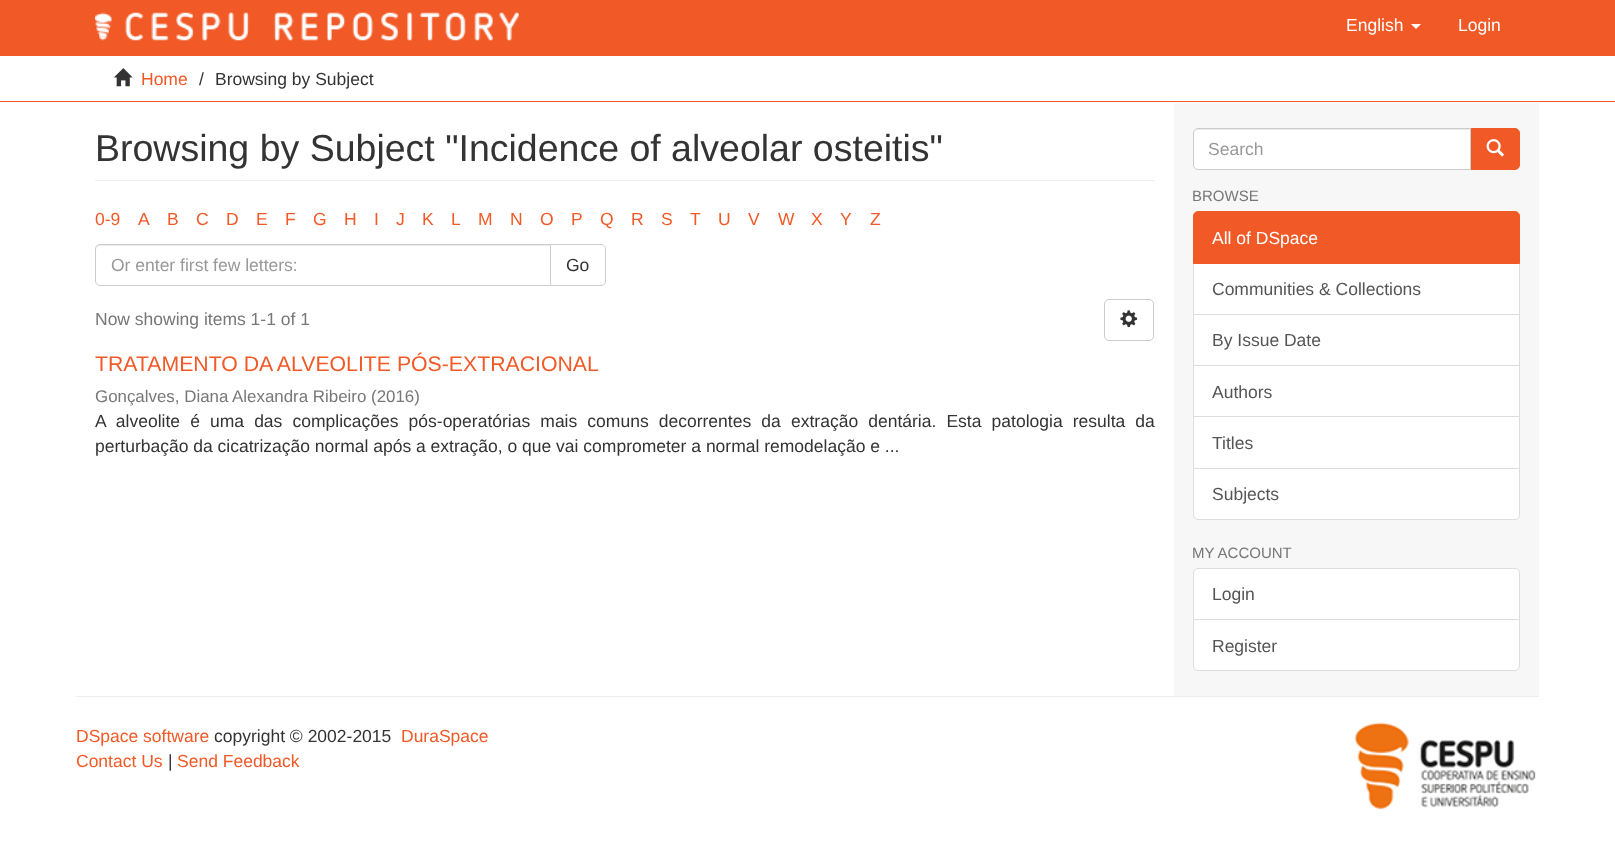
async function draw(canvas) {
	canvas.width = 1615;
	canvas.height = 843;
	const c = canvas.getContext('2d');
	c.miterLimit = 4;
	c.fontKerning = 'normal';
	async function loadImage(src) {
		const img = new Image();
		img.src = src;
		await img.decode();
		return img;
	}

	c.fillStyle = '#fff';
	c.fillRect(0, 0, 1615, 843);
	c.fillStyle = '#f15927';
	c.fillRect(0, 0, 1615, 56);
	c.drawImage(await loadImage('img1.png'), 95, 12, 424, 29);
	c.font = '17.5px Liberation Sans';
	c.fillStyle = '#fff';
	c.fillText('English', 1346, 31);
	c.beginPath();
	c.moveTo(1411, 24);
	c.lineTo(1421, 24);
	c.lineTo(1416, 29);
	c.closePath();
	c.fill();
	c.fillText('Login', 1458, 31);
	c.fillStyle = '#f15927';
	c.fillRect(0, 101, 1615, 1);
	c.drawImage(await loadImage('img2.png'), 113, 68, 20, 19);
	c.fillText('Home', 141, 85);
	c.fillStyle = '#333';
	c.fillText('/', 199, 85);
	c.fillText('Browsing by Subject', 215, 85);
	c.fillStyle = '#f7f7f7';
	c.fillRect(1174, 103, 365, 593);
	c.fillStyle = '#eee';
	c.fillRect(95, 180, 1060, 1);
	c.font = '37.5px Liberation Sans';
	c.fillStyle = '#333';
	c.fillText('Browsing by Subject "Incidence of alveolar osteitis"', 95, 161);
	c.font = '17.5px Liberation Sans';
	c.fillStyle = '#f15927';
	for (const [text, x, y] of [
		['0-9', 95, 225],
		['A', 138, 225],
		['B', 167, 225],
		['C', 196, 225],
		['D', 226, 225],
		['E', 256, 225],
		['F', 285, 225],
		['G', 313, 225],
		['H', 344, 225],
		['I', 374, 225],
		['J', 396, 225],
		['K', 422, 225],
		['L', 451, 225],
		['M', 478, 225],
		['N', 510, 225],
		['O', 540, 225],
		['P', 571, 225],
		['Q', 600, 225],
		['R', 631, 225],
		['S', 661, 225],
		['T', 690, 225],
		['U', 718, 225],
		['V', 748, 225],
		['W', 778, 225],
		['X', 811, 225],
		['Y', 840, 225],
		['Z', 870, 225],
	]) {
		c.fillText(text, x, y);
	}
	c.beginPath();
	c.roundRect(550.5, 244.5, 55, 41, [0, 4.5, 4.5, 0]);
	c.strokeStyle = '#ccc';
	c.stroke();
	c.fillStyle = '#fff';
	c.beginPath();
	c.roundRect(95, 244, 456, 42, [5, 0, 0, 5]);
	c.fill();
	c.fillStyle = '#ececec';
	c.beginPath();
	c.moveTo(100, 246);
	c.lineTo(550, 246);
	c.lineTo(550, 245);
	c.lineTo(100, 245);
	c.bezierCurveTo(98, 245, 96, 247, 96, 249);
	c.lineTo(96, 250);
	c.bezierCurveTo(96, 248, 98, 246, 100, 246);
	c.closePath();
	c.fill();
	c.beginPath();
	c.roundRect(95.5, 244.5, 455, 41, [4.5, 0, 0, 4.5]);
	c.stroke();
	c.fillStyle = '#999';
	c.fillText('Or enter first few letters:', 111, 271);
	c.fillStyle = '#333';
	c.fillText('Go', 566, 271);
	c.fillStyle = '#777';
	c.fillText('Now showing items 1-1 of 1', 95, 325);
	c.beginPath();
	c.roundRect(1104.5, 299.5, 49, 41, 4.5);
	c.stroke();
	c.drawImage(await loadImage('img3.png'), 1120, 310, 18, 18);
	c.font = '21.25px Liberation Sans';
	c.fillStyle = '#f15927';
	c.fillText('TRATAMENTO DA ALVEOLITE PÓS-EXTRACIONAL', 95, 371);
	c.font = '16.9px Liberation Sans';
	c.fillStyle = '#777';
	c.fillText('Gonçalves, Diana Alexandra Ribeiro (2016)', 95, 402);
	c.wordSpacing = '5.25px';
	c.font = '17.5px Liberation Sans';
	c.fillStyle = '#333';
	c.fillText('A alveolite é uma das complicações pós-operatórias mais comuns decorrentes da', 95, 427);
	c.fillText('extração dentária. Esta patologia resulta da', 791, 427);
	c.wordSpacing = '0px';
	c.fillText('perturbação da cicatrização normal após a extração, o que vai comprometer a normal remodelação e ...', 95, 452);
	c.fillStyle = '#f15927';
	c.beginPath();
	c.roundRect(1470.5, 128.5, 49, 41, [0, 4.5, 4.5, 0]);
	c.fill();
	c.strokeStyle = '#f15927';
	c.stroke();
	c.fillStyle = '#fff';
	c.beginPath();
	c.roundRect(1193, 128, 278, 42, [5, 0, 0, 5]);
	c.fill();
	c.fillStyle = '#ececec';
	c.beginPath();
	c.moveTo(1198, 130);
	c.lineTo(1470, 130);
	c.lineTo(1470, 129);
	c.lineTo(1198, 129);
	c.bezierCurveTo(1195, 129, 1194, 131, 1194, 134);
	c.bezierCurveTo(1194, 132, 1195, 130, 1198, 130);
	c.closePath();
	c.fill();
	c.beginPath();
	c.roundRect(1193.5, 128.5, 277, 41, [4.5, 0, 0, 4.5]);
	c.strokeStyle = '#ccc';
	c.stroke();
	c.fillStyle = '#999';
	c.fillText('Search', 1208, 155);
	c.drawImage(await loadImage('img4.png'), 1486, 139, 18, 18);
	c.font = '15px Liberation Sans';
	c.fillStyle = '#777';
	c.fillText('BROWSE', 1192, 201);
	c.fillStyle = '#fff';
	c.beginPath();
	c.rect(1193.5, 263.5, 326, 51);
	c.fill();
	c.strokeStyle = '#ddd';
	c.stroke();
	c.fillStyle = '#f15927';
	c.beginPath();
	c.roundRect(1193.5, 211.5, 326, 52, [4.5, 4.5, 0, 0]);
	c.fill();
	c.strokeStyle = '#f15927';
	c.stroke();
	c.font = '17.5px Liberation Sans';
	c.fillStyle = '#fff';
	c.fillText('All of DSpace', 1212, 244);
	c.fillStyle = '#555';
	c.fillText('Communities & Collections', 1212, 295);
	c.fillStyle = '#fff';
	c.beginPath();
	c.rect(1193.5, 314.5, 326, 51);
	c.fill();
	c.strokeStyle = '#ddd';
	c.stroke();
	c.fillStyle = '#555';
	c.fillText('By Issue Date', 1212, 346);
	c.fillStyle = '#fff';
	c.fillRect(1194, 366, 325, 50);
	c.strokeRect(1193.5, 365.5, 326, 52);
	c.fillStyle = '#555';
	c.fillText('Authors', 1212, 398);
	c.fillStyle = '#fff';
	c.beginPath();
	c.rect(1193.5, 416.5, 326, 52);
	c.fill();
	c.stroke();
	c.fillStyle = '#555';
	c.fillText('Titles', 1212, 449);
	c.fillStyle = '#fff';
	c.beginPath();
	c.roundRect(1193.5, 468.5, 326, 51, [0, 0, 4.5, 4.5]);
	c.fill();
	c.stroke();
	c.fillStyle = '#555';
	c.fillText('Subjects', 1212, 500);
	c.font = '15px Liberation Sans';
	c.fillStyle = '#777';
	c.fillText('MY ACCOUNT', 1192, 558);
	c.fillStyle = '#fff';
	c.beginPath();
	c.roundRect(1193.5, 568.5, 326, 51, [4.5, 4.5, 0, 0]);
	c.fill();
	c.stroke();
	c.font = '17.5px Liberation Sans';
	c.fillStyle = '#555';
	c.fillText('Login', 1212, 600);
	c.fillStyle = '#fff';
	c.beginPath();
	c.roundRect(1193.5, 619.5, 326, 51, [0, 0, 4.5, 4.5]);
	c.fill();
	c.stroke();
	c.fillStyle = '#555';
	c.fillText('Register', 1212, 652);
	c.fillStyle = '#eee';
	c.fillRect(76, 696, 1463, 1);
	c.fillStyle = '#f15927';
	c.fillText('DSpace software', 76, 742);
	c.fillStyle = '#333';
	c.fillText('copyright © 2002-2015', 214, 742);
	c.fillStyle = '#f15927';
	c.fillText('DuraSpace', 401, 742);
	c.fillText('Contact Us', 76, 767);
	c.fillStyle = '#333';
	c.fillText('|', 168, 767);
	c.fillStyle = '#f15927';
	c.fillText('Send Feedback', 177, 767);
	c.drawImage(await loadImage('img5.png'), 1354, 722, 182, 88);
}

draw(document.querySelector('canvas'));
